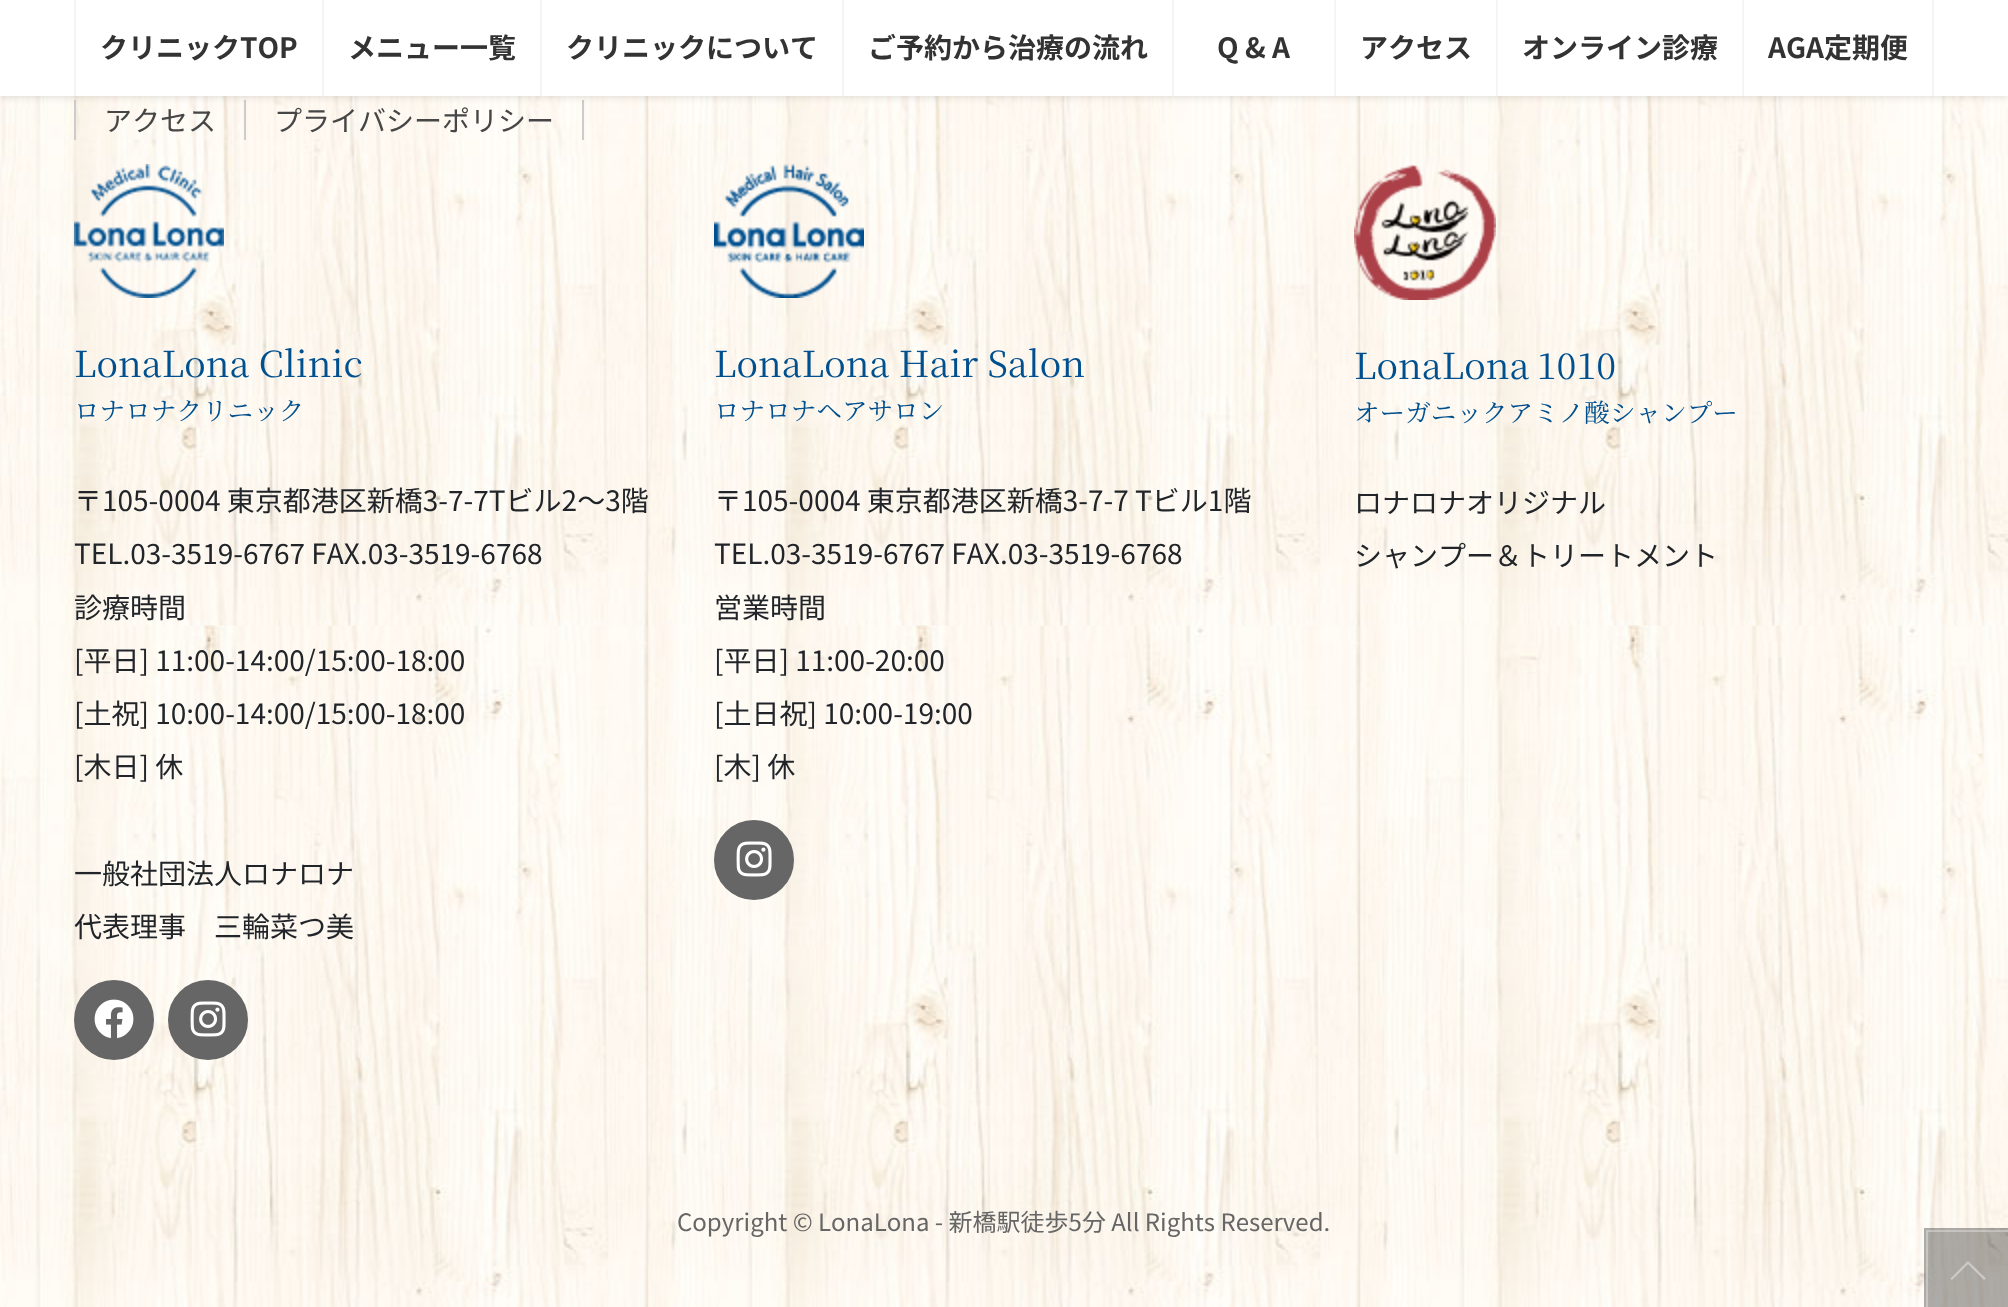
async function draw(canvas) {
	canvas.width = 2008;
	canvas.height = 1307;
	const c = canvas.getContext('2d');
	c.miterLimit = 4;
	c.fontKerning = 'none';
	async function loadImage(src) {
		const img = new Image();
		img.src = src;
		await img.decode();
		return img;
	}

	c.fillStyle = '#fff';
	c.fillRect(0, 0, 2008, 1307);
	c.drawImage(await loadImage('img1.png'), 0, 96, 2008, 1211);
	for (const [x, y, w, h, color] of [
		[74, 100, 2, 40, '#ccc'],
		[582, 100, 2, 40, '#ccc'],
		[244, 100, 2, 40, '#ccc'],
	]) {
		c.fillStyle = color;
		c.fillRect(x, y, w, h);
	}
	c.fillStyle = '#0000001a';
	c.filter = 'blur(3px)';
	c.beginPath();
	c.rect(0, 2, 2008, 96);
	c.fill();
	c.filter = 'none';
	c.fillStyle = '#fff';
	c.fillRect(0, 0, 2008, 96);
	c.fillStyle = '#f5f5f5';
	c.fillRect(74, 0, 2, 96);
	c.font = 'bold 28px Noto Sans JP';
	c.fillStyle = '#333';
	c.fillText('クリニックTOP', 100, 58);
	c.fillStyle = '#f5f5f5';
	c.fillRect(322, 0, 2, 96);
	c.fillStyle = '#333';
	c.fillText('メニュー一覧', 348, 58);
	c.fillStyle = '#f5f5f5';
	c.fillRect(540, 0, 2, 96);
	c.fillStyle = '#333';
	c.fillText('クリニックについて', 566, 58);
	c.fillStyle = '#f5f5f5';
	c.fillRect(842, 0, 2, 96);
	c.fillStyle = '#333';
	c.fillText('ご予約から治療の流れ', 868, 58);
	c.fillStyle = '#f5f5f5';
	c.fillRect(1172, 0, 2, 96);
	c.fillStyle = '#333';
	c.fillText('Q & A', 1217, 58);
	c.fillStyle = '#f5f5f5';
	c.fillRect(1334, 0, 2, 96);
	c.fillStyle = '#333';
	c.fillText('アクセス', 1360, 58);
	c.fillStyle = '#f5f5f5';
	c.fillRect(1496, 0, 2, 96);
	c.fillStyle = '#333';
	c.fillText('オンライン診療', 1522, 58);
	c.fillStyle = '#f5f5f5';
	c.fillRect(1932, 0, 2, 96);
	c.fillRect(1742, 0, 2, 96);
	c.fillStyle = '#333';
	c.fillText('AGA定期便', 1768, 58);
	c.font = '28px Noto Sans JP';
	c.fillStyle = '#464646';
	c.fillText('アクセス', 104, 131);
	c.fillText('プライバシーポリシー', 274, 131);
	c.drawImage(await loadImage('img2.png'), 74, 164, 150, 134);
	c.font = '36px Noto Serif JP';
	c.fillStyle = '#00508f';
	c.fillText('LonaLona Clinic', 74, 377);
	c.font = '25.6px Noto Serif JP';
	c.fillText('ロナロナクリニック', 74, 420);
	c.font = '28px Noto Sans JP';
	c.fillStyle = '#212529';
	for (const [text, x, y] of [
		['〒105-0004 東京都港区新橋3-7-7Tビル2〜3階', 74, 511],
		['TEL.03-3519-6767 FAX.03-3519-6768', 74, 564],
		['診療時間', 74, 618],
		['[平日] 11:00-14:00/15:00-18:00', 74, 671],
		['[土祝] 10:00-14:00/15:00-18:00', 74, 724],
		['[木日] 休', 74, 777],
		['一般社団法人ロナロナ', 74, 884],
		['代表理事　三輪菜つ美', 74, 937],
	]) {
		c.fillText(text, x, y);
	}
	c.fillStyle = '#666';
	c.beginPath();
	c.arc(114, 1020, 39, 0, 2 * Math.PI);
	c.fill();
	c.strokeStyle = '#666';
	c.lineWidth = 2;
	c.stroke();
	c.drawImage(await loadImage('img3.png'), 94, 999, 40, 40);
	c.beginPath();
	c.arc(208, 1020, 39, 0, 2 * Math.PI);
	c.fill();
	c.stroke();
	c.drawImage(await loadImage('img4.png'), 190, 1001, 36, 36);
	c.drawImage(await loadImage('img5.png'), 714, 164, 150, 134);
	c.font = '36px Noto Serif JP';
	c.fillStyle = '#00508f';
	c.fillText('LonaLona Hair Salon', 714, 377);
	c.font = '25.6px Noto Serif JP';
	c.fillText('ロナロナヘアサロン', 714, 420);
	c.font = '28px Noto Sans JP';
	c.fillStyle = '#212529';
	for (const [text, x, y] of [
		['〒105-0004 東京都港区新橋3-7-7 Tビル1階', 714, 511],
		['TEL.03-3519-6767 FAX.03-3519-6768', 714, 564],
		['営業時間', 714, 618],
		['[平日] 11:00-20:00', 714, 671],
		['[土日祝] 10:00-19:00', 714, 724],
		['[木] 休', 714, 777],
	]) {
		c.fillText(text, x, y);
	}
	c.fillStyle = '#666';
	c.beginPath();
	c.arc(754, 860, 39, 0, 2 * Math.PI);
	c.fill();
	c.stroke();
	c.drawImage(await loadImage('img4.png'), 736, 841, 36, 36);
	c.drawImage(await loadImage('img6.png'), 1354, 164, 142, 136);
	c.wordSpacing = '-2px';
	c.font = '36px Noto Serif JP';
	c.fillStyle = '#00508f';
	c.fillText('LonaLona 1010', 1354, 379);
	c.wordSpacing = '0px';
	c.font = '25.6px Noto Serif JP';
	c.fillText('オーガニックアミノ酸シャンプー', 1354, 422);
	c.font = '28px Noto Sans JP';
	c.fillStyle = '#212529';
	c.fillText('ロナロナオリジナル', 1354, 513);
	c.fillText('シャンプー＆トリートメント', 1354, 566);
	c.font = '24px Noto Sans JP';
	c.fillStyle = '#666';
	c.fillText('Copyright © LonaLona - 新橋駅徒歩5分 All Rights Reserved.', 677, 1231);
	c.strokeStyle = '#00000052';
	c.lineWidth = 4;
	c.strokeRect(1926, 1230, 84, 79);
	c.strokeStyle = '#ffffff52';
	c.lineWidth = 2;
	c.strokeRect(1927, 1231, 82, 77);
	c.fillStyle = '#00000052';
	c.fillRect(1928, 1232, 80, 75);
	c.fillStyle = '#ffffff66';
	c.beginPath();
	c.moveTo(1986, 1278.5);
	c.lineTo(1984, 1280);
	c.lineTo(1968, 1264);
	c.lineTo(1952, 1280);
	c.lineTo(1950.5, 1278.5);
	c.lineTo(1968, 1261);
	c.closePath();
	c.fill();
}

draw(document.querySelector('canvas'));
